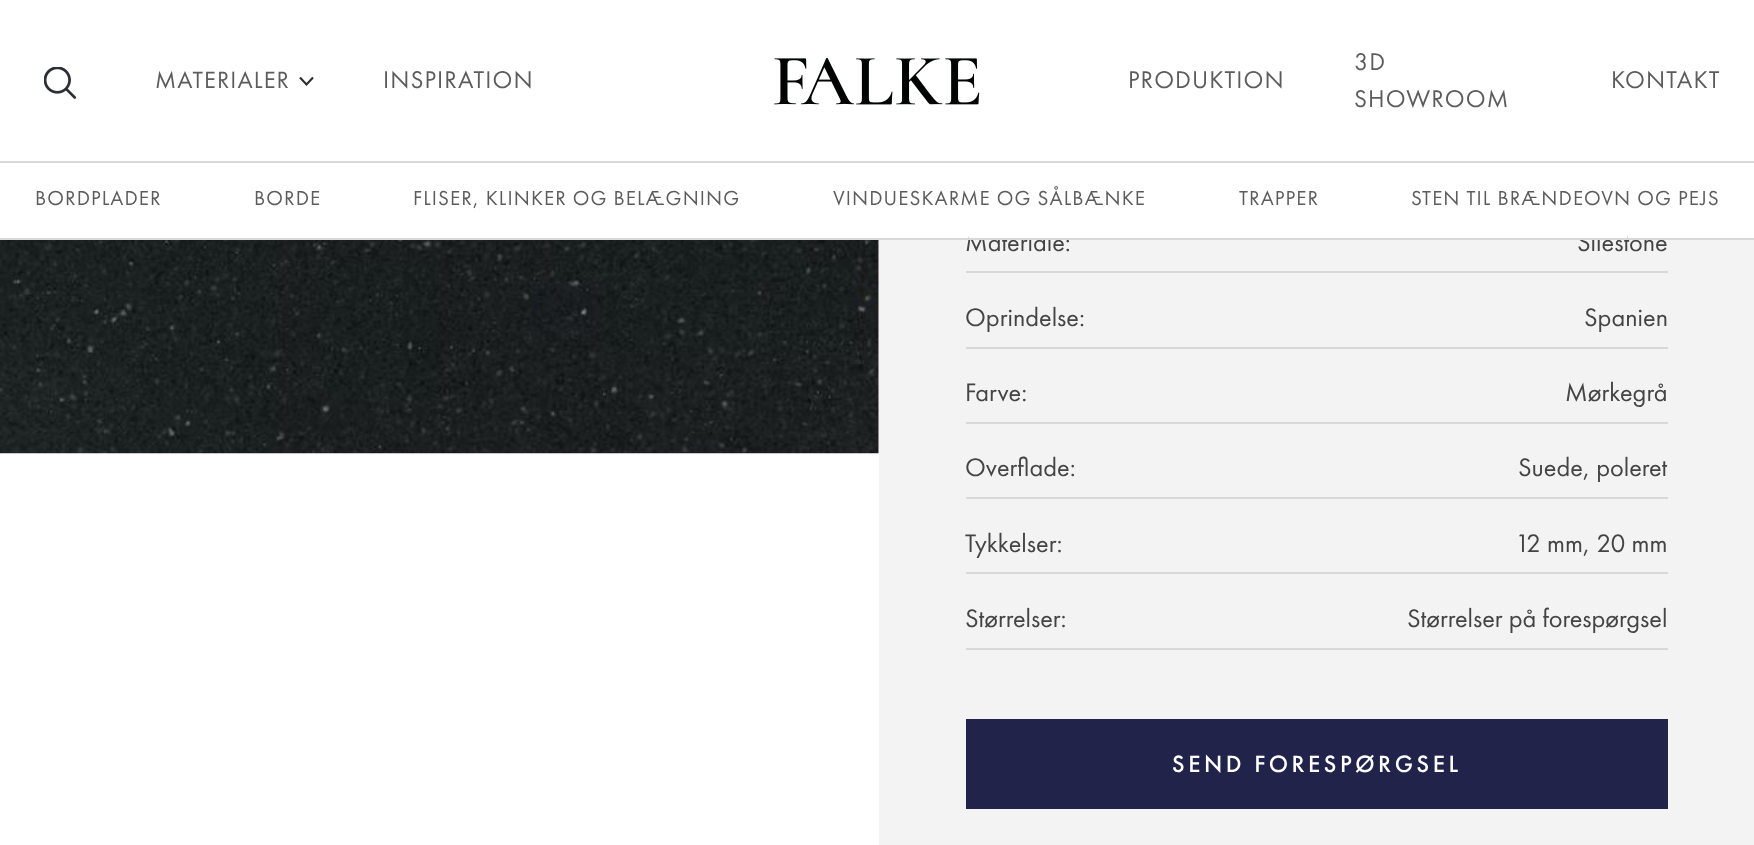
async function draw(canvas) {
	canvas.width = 1754;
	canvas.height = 845;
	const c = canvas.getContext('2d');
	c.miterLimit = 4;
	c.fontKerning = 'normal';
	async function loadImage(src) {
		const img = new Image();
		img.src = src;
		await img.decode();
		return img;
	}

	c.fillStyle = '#fff';
	c.fillRect(0, 0, 1754, 845);
	c.fillStyle = '#f3f3f3';
	c.fillRect(879, 240, 875, 605);
	c.font = '26.25px Futura PT';
	c.fillStyle = '#444';
	c.fillText('Materiale:', 965, 251);
	c.fillText('Silestone', 1577, 251);
	c.fillStyle = '#fff';
	c.fillRect(969, 231, 658, 7);
	c.fillStyle = '#d8d8d8';
	c.fillRect(0, 238, 1754, 2);
	c.drawImage(await loadImage('img1.png'), 44, 67, 33, 32);
	c.letterSpacing = '1.1px';
	c.font = '24.5px Futura PT';
	c.fillStyle = '#5c5c5c';
	c.fillText('MATERIALER', 155, 88);
	c.beginPath();
	c.moveTo(300, 77.5);
	c.lineTo(306.5, 84.5);
	c.lineTo(313, 77.5);
	c.strokeStyle = '#2e2e2e';
	c.lineWidth = 2.1;
	c.stroke();
	c.font = '25px Futura PT';
	c.fillText('INSPIRATION', 383, 88);
	c.drawImage(await loadImage('img2.png'), 774, 58, 206, 47);
	for (const [text, x, y] of [
		['PRODUKTION', 1128, 88],
		['3D', 1354, 70],
		['SHOWROOM', 1354, 107],
		['KONTAKT', 1611, 88],
	]) {
		c.fillText(text, x, y);
	}
	c.fillStyle = '#d8d8d8';
	c.fillRect(0, 161, 1754, 2);
	c.font = '21px Futura PT';
	c.fillStyle = '#5c5c5c';
	for (const [text, x, y] of [
		['BORDPLADER', 35, 205],
		['BORDE', 254, 205],
		['FLISER, KLINKER OG BELÆGNING', 413, 205],
		['VINDUESKARME OG SÅLBÆNKE', 833, 205],
		['TRAPPER', 1239, 205],
		['STEN TIL BRÆNDEOVN OG PEJS', 1411, 205],
	]) {
		c.fillText(text, x, y);
	}
	c.drawImage(await loadImage('img3.png'), 0, 240, 879, 214);
	c.fillStyle = '#d8d8d8';
	c.fillRect(966, 271, 702, 2);
	c.fillRect(966, 347, 702, 2);
	c.letterSpacing = '0px';
	c.font = '26.25px Futura PT';
	c.fillStyle = '#444';
	c.fillText('Oprindelse:', 965, 326);
	c.fillText('Spanien', 1584, 326);
	c.fillStyle = '#d8d8d8';
	c.fillRect(966, 422, 702, 2);
	c.fillStyle = '#444';
	c.fillText('Farve:', 965, 401);
	c.fillText('Mørkegrå', 1565, 401);
	c.fillStyle = '#d8d8d8';
	c.fillRect(966, 497, 702, 2);
	c.fillStyle = '#444';
	c.fillText('Overflade:', 965, 476);
	c.fillText('Suede, poleret', 1518, 476);
	c.fillStyle = '#d8d8d8';
	c.fillRect(966, 572, 702, 2);
	c.fillStyle = '#444';
	c.fillText('Tykkelser:', 965, 552);
	c.fillText('12 mm, 20 mm', 1515, 552);
	c.fillStyle = '#d8d8d8';
	c.fillRect(966, 648, 702, 2);
	c.fillStyle = '#444';
	c.fillText('Størrelser:', 965, 627);
	c.fillText('Størrelser på forespørgsel', 1407, 627);
	c.fillStyle = '#21234a';
	c.fillRect(966, 719, 702, 90);
	c.letterSpacing = '3.5px';
	c.font = '500 24.5px Futura PT';
	c.fillStyle = '#fff';
	c.fillText('SEND FORESPØRGSEL', 1172, 772);
}

draw(document.querySelector('canvas'));
